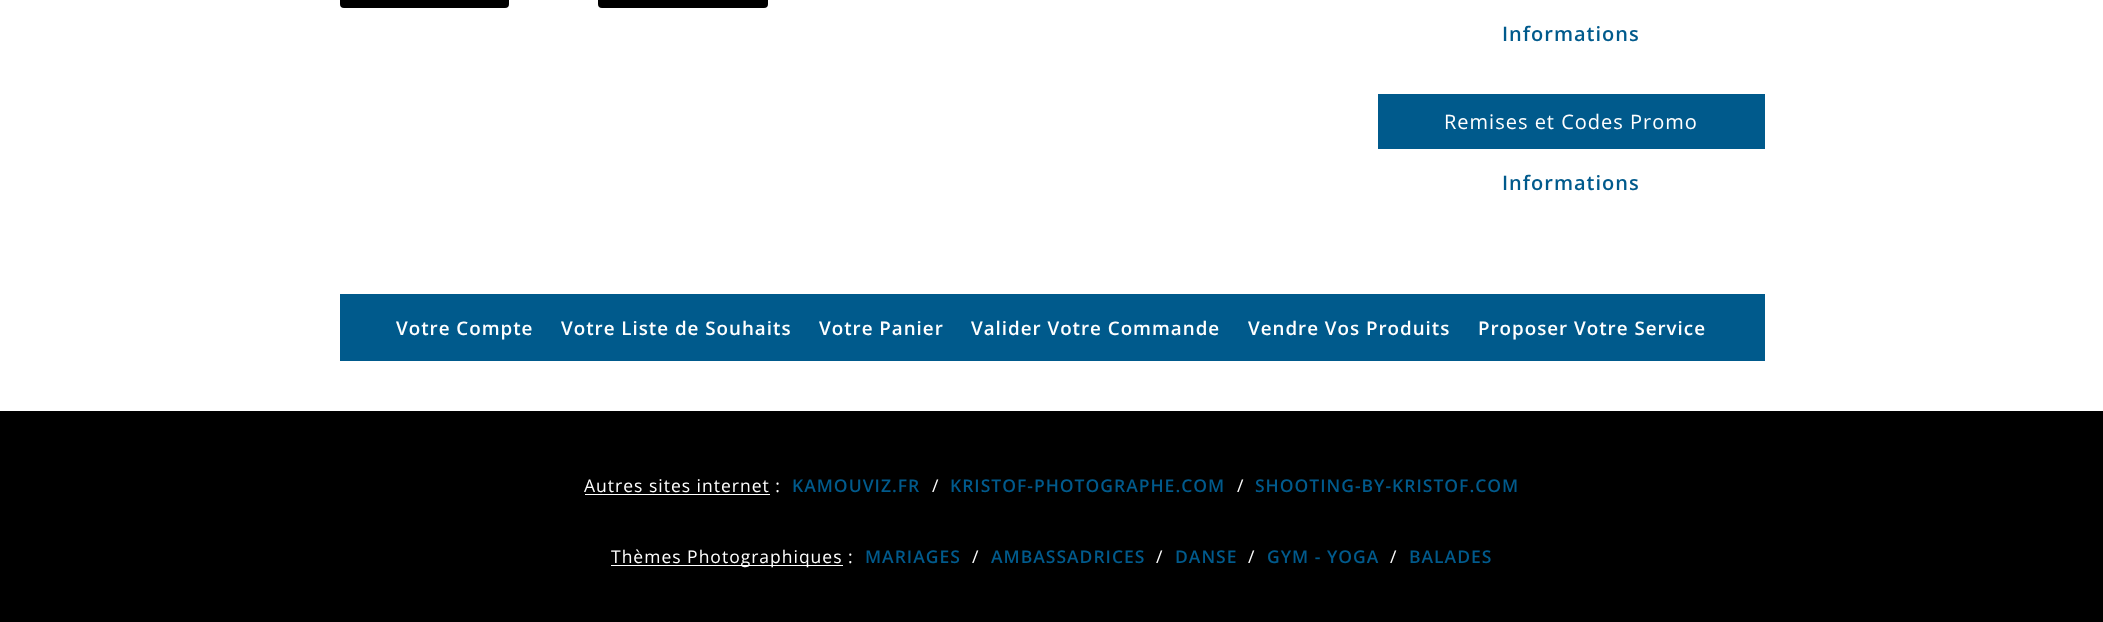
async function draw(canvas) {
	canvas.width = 2103;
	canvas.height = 622;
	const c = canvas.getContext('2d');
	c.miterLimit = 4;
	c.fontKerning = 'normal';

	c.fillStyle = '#fff';
	c.fillRect(0, 0, 2103, 622);
	c.fillStyle = '#000';
	c.beginPath();
	c.roundRect(340, -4, 169, 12, 4);
	c.fill();
	c.beginPath();
	c.roundRect(598, -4, 170, 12, 4);
	c.fill();
	c.letterSpacing = '1px';
	c.font = '600 20px Open Sans';
	c.fillStyle = '#005a8c';
	c.fillText('Informations', 1502, 41);
	c.fillRect(1378, 94, 387, 55);
	c.font = '20px Open Sans';
	c.fillStyle = '#fff';
	c.fillText('Remises et Codes Promo', 1444, 129);
	c.font = '600 20px Open Sans';
	c.fillStyle = '#005a8c';
	c.fillText('Informations', 1502, 190);
	c.fillRect(340, 294, 1425, 67);
	c.font = '600 18.75px Open Sans';
	c.fillStyle = '#fff';
	for (const [text, x, y] of [
		['Votre Compte', 396, 335],
		['Votre Liste de Souhaits', 561, 335],
		['Votre Panier', 819, 335],
		['Valider Votre Commande', 971, 335],
		['Vendre Vos Produits', 1248, 335],
		['Proposer Votre Service', 1478, 335],
	]) {
		c.fillText(text, x, y);
	}
	c.fillStyle = '#000';
	c.fillRect(0, 411, 2103, 211);
	c.font = '17.5px Open Sans';
	c.fillStyle = '#fff';
	c.fillText('Autres sites internet :', 584, 492);
	c.fillRect(585, 494, 185, 1);
	c.font = '600 17.5px Open Sans';
	c.fillStyle = '#005a8c';
	c.fillText('KAMOUVIZ.FR', 792, 492);
	c.font = '17.5px Open Sans';
	c.fillStyle = '#fff';
	c.fillText('/', 932, 492);
	c.font = '600 17.5px Open Sans';
	c.fillStyle = '#005a8c';
	c.fillText('KRISTOF-PHOTOGRAPHE.COM', 950, 492);
	c.font = '17.5px Open Sans';
	c.fillStyle = '#fff';
	c.fillText('/', 1237, 492);
	c.font = '600 17.5px Open Sans';
	c.fillStyle = '#005a8c';
	c.fillText('SHOOTING-BY-KRISTOF.COM', 1255, 492);
	c.fillStyle = '#fff';
	c.fillRect(611, 565, 232, 1);
	c.font = '17.5px Open Sans';
	c.fillText('Thèmes Photographiques :', 611, 563);
	c.font = '600 17.5px Open Sans';
	c.fillStyle = '#005a8c';
	c.fillText('MARIAGES', 865, 563);
	c.font = '17.5px Open Sans';
	c.fillStyle = '#fff';
	c.fillText('/', 972, 563);
	c.font = '600 17.5px Open Sans';
	c.fillStyle = '#005a8c';
	c.fillText('AMBASSADRICES', 991, 563);
	c.font = '17.5px Open Sans';
	c.fillStyle = '#fff';
	c.fillText('/', 1156, 563);
	c.font = '600 17.5px Open Sans';
	c.fillStyle = '#005a8c';
	c.fillText('DANSE', 1175, 563);
	c.font = '17.5px Open Sans';
	c.fillStyle = '#fff';
	c.fillText('/', 1248, 563);
	c.font = '600 17.5px Open Sans';
	c.fillStyle = '#005a8c';
	c.fillText('GYM - YOGA', 1267, 563);
	c.font = '17.5px Open Sans';
	c.fillStyle = '#fff';
	c.fillText('/', 1390, 563);
	c.font = '600 17.5px Open Sans';
	c.fillStyle = '#005a8c';
	c.fillText('BALADES', 1409, 563);
}

draw(document.querySelector('canvas'));
